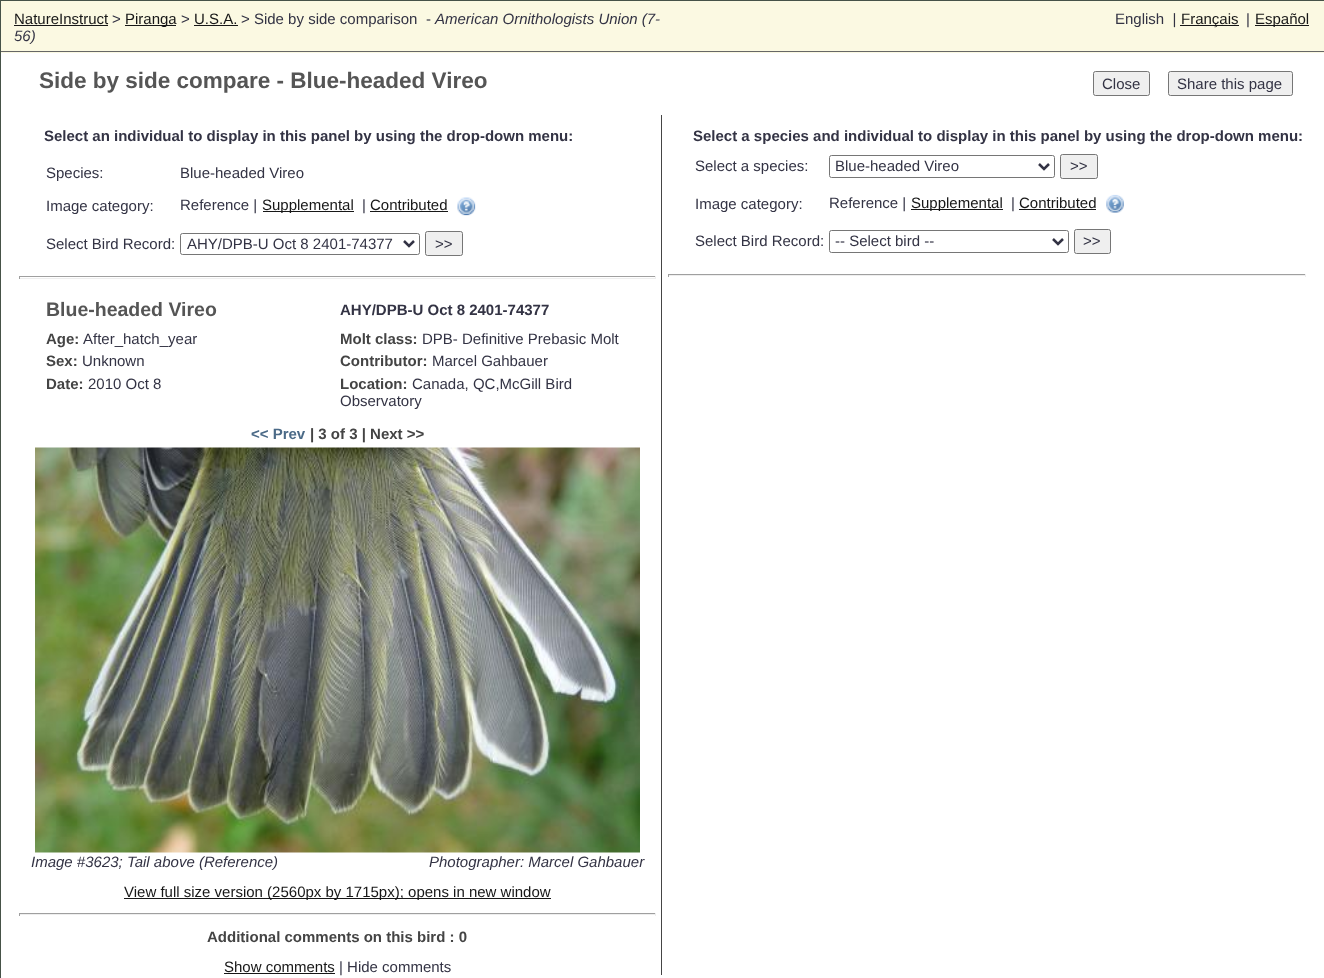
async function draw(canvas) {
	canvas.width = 1324;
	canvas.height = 978;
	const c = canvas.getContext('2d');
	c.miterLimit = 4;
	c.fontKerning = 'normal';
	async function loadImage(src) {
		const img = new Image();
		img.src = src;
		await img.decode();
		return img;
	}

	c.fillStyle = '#fff';
	c.fillRect(0, 0, 1324, 978);
	c.strokeStyle = '#465248';
	c.strokeRect(0.5, 0.5, 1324, 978);
	c.fillStyle = '#fbf9e2';
	c.fillRect(1, 1, 1323, 52);
	c.fillStyle = '#676767';
	c.fillRect(1, 51, 1323, 1);
	c.font = '15px Liberation Sans';
	c.fillStyle = '#171717';
	c.fillText('NatureInstruct', 14, 24);
	c.fillRect(14, 25, 94, 1);
	c.fillStyle = '#334';
	c.fillText('>', 112, 24);
	c.fillStyle = '#171717';
	c.fillRect(125, 25, 51, 1);
	c.fillText('Piranga', 125, 24);
	c.fillStyle = '#334';
	c.fillText('>', 181, 24);
	c.fillStyle = '#171717';
	c.fillText('U.S.A.', 194, 24);
	c.fillRect(194, 25, 44, 1);
	c.fillStyle = '#334';
	c.fillText('> Side by side comparison', 241, 24);
	c.fillText('-', 426, 24);
	c.font = 'italic 15px Liberation Sans';
	c.fillText('American Ornithologists Union (7-', 435, 24);
	c.fillText('56)', 14, 41);
	c.font = '15px Liberation Sans';
	c.fillText('English  |', 1115, 24);
	c.fillStyle = '#171717';
	c.fillRect(1180, 25, 59, 1);
	c.fillText('Français', 1181, 24);
	c.fillStyle = '#334';
	c.fillText('|', 1246, 24);
	c.fillStyle = '#171717';
	c.fillRect(1255, 25, 54, 1);
	c.fillText('Español', 1255, 24);
	c.font = 'bold 22.5px Liberation Sans';
	c.fillStyle = '#555';
	c.fillText('Side by side compare - Blue-headed Vireo', 39, 88);
	c.fillStyle = '#efefef';
	c.beginPath();
	c.roundRect(1093.5, 71.5, 56, 24, 2);
	c.fill();
	c.strokeStyle = '#767676';
	c.stroke();
	c.font = '15px Liberation Sans';
	c.fillStyle = '#334';
	c.fillText('Close', 1102, 89);
	c.fillStyle = '#efefef';
	c.beginPath();
	c.roundRect(1168.5, 71.5, 124, 24, 2);
	c.fill();
	c.stroke();
	c.fillStyle = '#334';
	c.fillText('Share this page', 1177, 89);
	c.fillStyle = '#454545';
	c.fillRect(661, 115, 1, 860);
	c.font = 'bold 15px Liberation Sans';
	c.fillStyle = '#334';
	c.fillText('Select an individual to display in this panel by using the drop-down menu:', 44, 141);
	c.font = '15px Liberation Sans';
	for (const [text, x, y] of [
		['Species:', 46, 178],
		['Blue-headed Vireo', 180, 178],
		['Image category:', 46, 211],
		['Reference |', 180, 210],
	]) {
		c.fillText(text, x, y);
	}
	c.fillStyle = '#171717';
	c.fillRect(263, 211, 91, 1);
	c.fillText('Supplemental', 262, 210);
	c.fillStyle = '#334';
	c.fillText('|', 362, 210);
	c.fillStyle = '#171717';
	c.fillText('Contributed', 370, 210);
	c.fillRect(370, 211, 78, 1);
	c.drawImage(await loadImage('img1.png'), 457, 197, 19, 19);
	c.fillStyle = '#334';
	c.fillText('Select Bird Record:', 46, 249);
	c.beginPath();
	c.roundRect(180.5, 233.5, 239, 21, 2);
	c.stroke();
	c.beginPath();
	c.moveTo(404, 241);
	c.lineTo(409, 246);
	c.lineTo(414, 241);
	c.strokeStyle = '#334';
	c.lineWidth = 2.5;
	c.stroke();
	c.fillText('AHY/DPB-U Oct 8 2401-74377', 187, 249);
	c.fillStyle = '#efefef';
	c.beginPath();
	c.roundRect(425.5, 231.5, 37, 24, 2);
	c.fill();
	c.strokeStyle = '#767676';
	c.lineWidth = 1;
	c.stroke();
	c.fillStyle = '#334';
	c.fillText('>>', 435, 249);
	for (const [x, y, w, h, color] of [
		[19, 276, 637, 1, '#9f9f9f'],
		[655, 276, 1, 3, '#eee'],
		[19, 278, 637, 1, '#eee'],
		[19, 276, 1, 3, '#9f9f9f'],
	]) {
		c.fillStyle = color;
		c.fillRect(x, y, w, h);
	}
	c.font = 'bold 19.5px Liberation Sans';
	c.fillStyle = '#555';
	c.fillText('Blue-headed Vireo', 46, 316);
	c.font = 'bold 15px Liberation Sans';
	c.fillStyle = '#334';
	c.fillText('AHY/DPB-U Oct 8 2401-74377', 340, 315);
	c.fillStyle = '#444';
	c.fillText('Age:', 46, 344);
	c.font = '15px Liberation Sans';
	c.fillStyle = '#334';
	c.fillText('After_hatch_year', 83, 344);
	c.font = 'bold 15px Liberation Sans';
	c.fillStyle = '#444';
	c.fillText('Molt class:', 340, 344);
	c.font = '15px Liberation Sans';
	c.fillStyle = '#334';
	c.fillText('DPB- Definitive Prebasic Molt', 422, 344);
	c.font = 'bold 15px Liberation Sans';
	c.fillStyle = '#444';
	c.fillText('Sex:', 46, 366);
	c.font = '15px Liberation Sans';
	c.fillStyle = '#334';
	c.fillText('Unknown', 82, 366);
	c.font = 'bold 15px Liberation Sans';
	c.fillStyle = '#444';
	c.fillText('Contributor:', 340, 366);
	c.font = '15px Liberation Sans';
	c.fillStyle = '#334';
	c.fillText('Marcel Gahbauer', 432, 366);
	c.font = 'bold 15px Liberation Sans';
	c.fillStyle = '#444';
	c.fillText('Date:', 46, 389);
	c.font = '15px Liberation Sans';
	c.fillStyle = '#334';
	c.fillText('2010 Oct 8', 88, 389);
	c.font = 'bold 15px Liberation Sans';
	c.fillStyle = '#444';
	c.fillText('Location:', 340, 389);
	c.font = '15px Liberation Sans';
	c.fillStyle = '#334';
	c.fillText('Canada, QC,McGill Bird', 412, 389);
	c.fillText('Observatory', 340, 406);
	c.font = 'bold 15px Liberation Sans';
	c.fillStyle = '#4b6a87';
	c.fillText('<< Prev', 251, 439);
	c.fillStyle = '#444';
	c.fillText('| 3 of 3 | Next >>', 310, 439);
	c.drawImage(await loadImage('img2.png'), 35, 447, 605, 406);
	c.font = 'italic 15px Liberation Sans';
	c.fillStyle = '#334';
	c.fillText('Image #3623; Tail above (Reference)', 31, 867);
	c.fillText('Photographer: Marcel Gahbauer', 429, 867);
	c.fillStyle = '#171717';
	c.fillRect(124, 898, 427, 1);
	c.font = '15px Liberation Sans';
	c.fillText('View full size version (2560px by 1715px); opens in new window', 124, 897);
	for (const [x, y, w, h, color] of [
		[19, 913, 637, 1, '#9f9f9f'],
		[655, 913, 1, 3, '#eee'],
		[19, 914, 637, 1, '#eee'],
		[19, 913, 1, 3, '#9f9f9f'],
	]) {
		c.fillStyle = color;
		c.fillRect(x, y, w, h);
	}
	c.font = 'bold 15px Liberation Sans';
	c.fillStyle = '#444';
	c.fillText('Additional comments on this bird : 0', 207, 942);
	c.font = '15px Liberation Sans';
	c.fillStyle = '#171717';
	c.fillText('Show comments', 224, 972);
	c.fillRect(224, 973, 111, 1);
	c.fillStyle = '#334';
	c.fillText('| Hide comments', 339, 972);
	c.font = 'bold 15px Liberation Sans';
	c.fillText('Select a species and individual to display in this panel by using the drop-down menu:', 693, 141);
	c.font = '15px Liberation Sans';
	c.fillText('Select a species:', 695, 171);
	c.beginPath();
	c.roundRect(829.5, 155.5, 225, 22, 2);
	c.stroke();
	c.beginPath();
	c.moveTo(1039, 164);
	c.lineTo(1044, 169);
	c.lineTo(1049, 164);
	c.strokeStyle = '#334';
	c.lineWidth = 2.5;
	c.stroke();
	c.fillText('Blue-headed Vireo', 835, 171);
	c.fillStyle = '#efefef';
	c.beginPath();
	c.roundRect(1060.5, 154.5, 37, 24, 2);
	c.fill();
	c.strokeStyle = '#767676';
	c.lineWidth = 1;
	c.stroke();
	c.fillStyle = '#334';
	for (const [text, x, y] of [
		['>>', 1070, 171],
		['Image category:', 695, 209],
		['Reference |', 829, 208],
	]) {
		c.fillText(text, x, y);
	}
	c.fillStyle = '#171717';
	c.fillRect(911, 209, 92, 1);
	c.fillText('Supplemental', 911, 208);
	c.fillStyle = '#334';
	c.fillText('|', 1011, 208);
	c.fillStyle = '#171717';
	c.fillText('Contributed', 1019, 208);
	c.fillRect(1019, 209, 77, 1);
	c.drawImage(await loadImage('img3.png'), 1106, 194, 18, 19);
	c.fillStyle = '#334';
	c.fillText('Select Bird Record:', 695, 246);
	c.beginPath();
	c.roundRect(829.5, 230.5, 239, 22, 2);
	c.stroke();
	c.beginPath();
	c.moveTo(1053, 239);
	c.lineTo(1058, 244);
	c.lineTo(1063, 239);
	c.strokeStyle = '#334';
	c.lineWidth = 2.5;
	c.stroke();
	c.fillText('-- Select bird --', 835, 246);
	c.fillStyle = '#efefef';
	c.beginPath();
	c.roundRect(1074.5, 229.5, 36, 24, 2);
	c.fill();
	c.strokeStyle = '#767676';
	c.lineWidth = 1;
	c.stroke();
	c.fillStyle = '#334';
	c.fillText('>>', 1083, 246);
	for (const [x, y, w, h, color] of [
		[668, 274, 638, 1, '#9f9f9f'],
		[1305, 274, 1, 3, '#eee'],
		[668, 275, 638, 1, '#eee'],
		[668, 274, 1, 3, '#9f9f9f'],
	]) {
		c.fillStyle = color;
		c.fillRect(x, y, w, h);
	}
}

draw(document.querySelector('canvas'));
